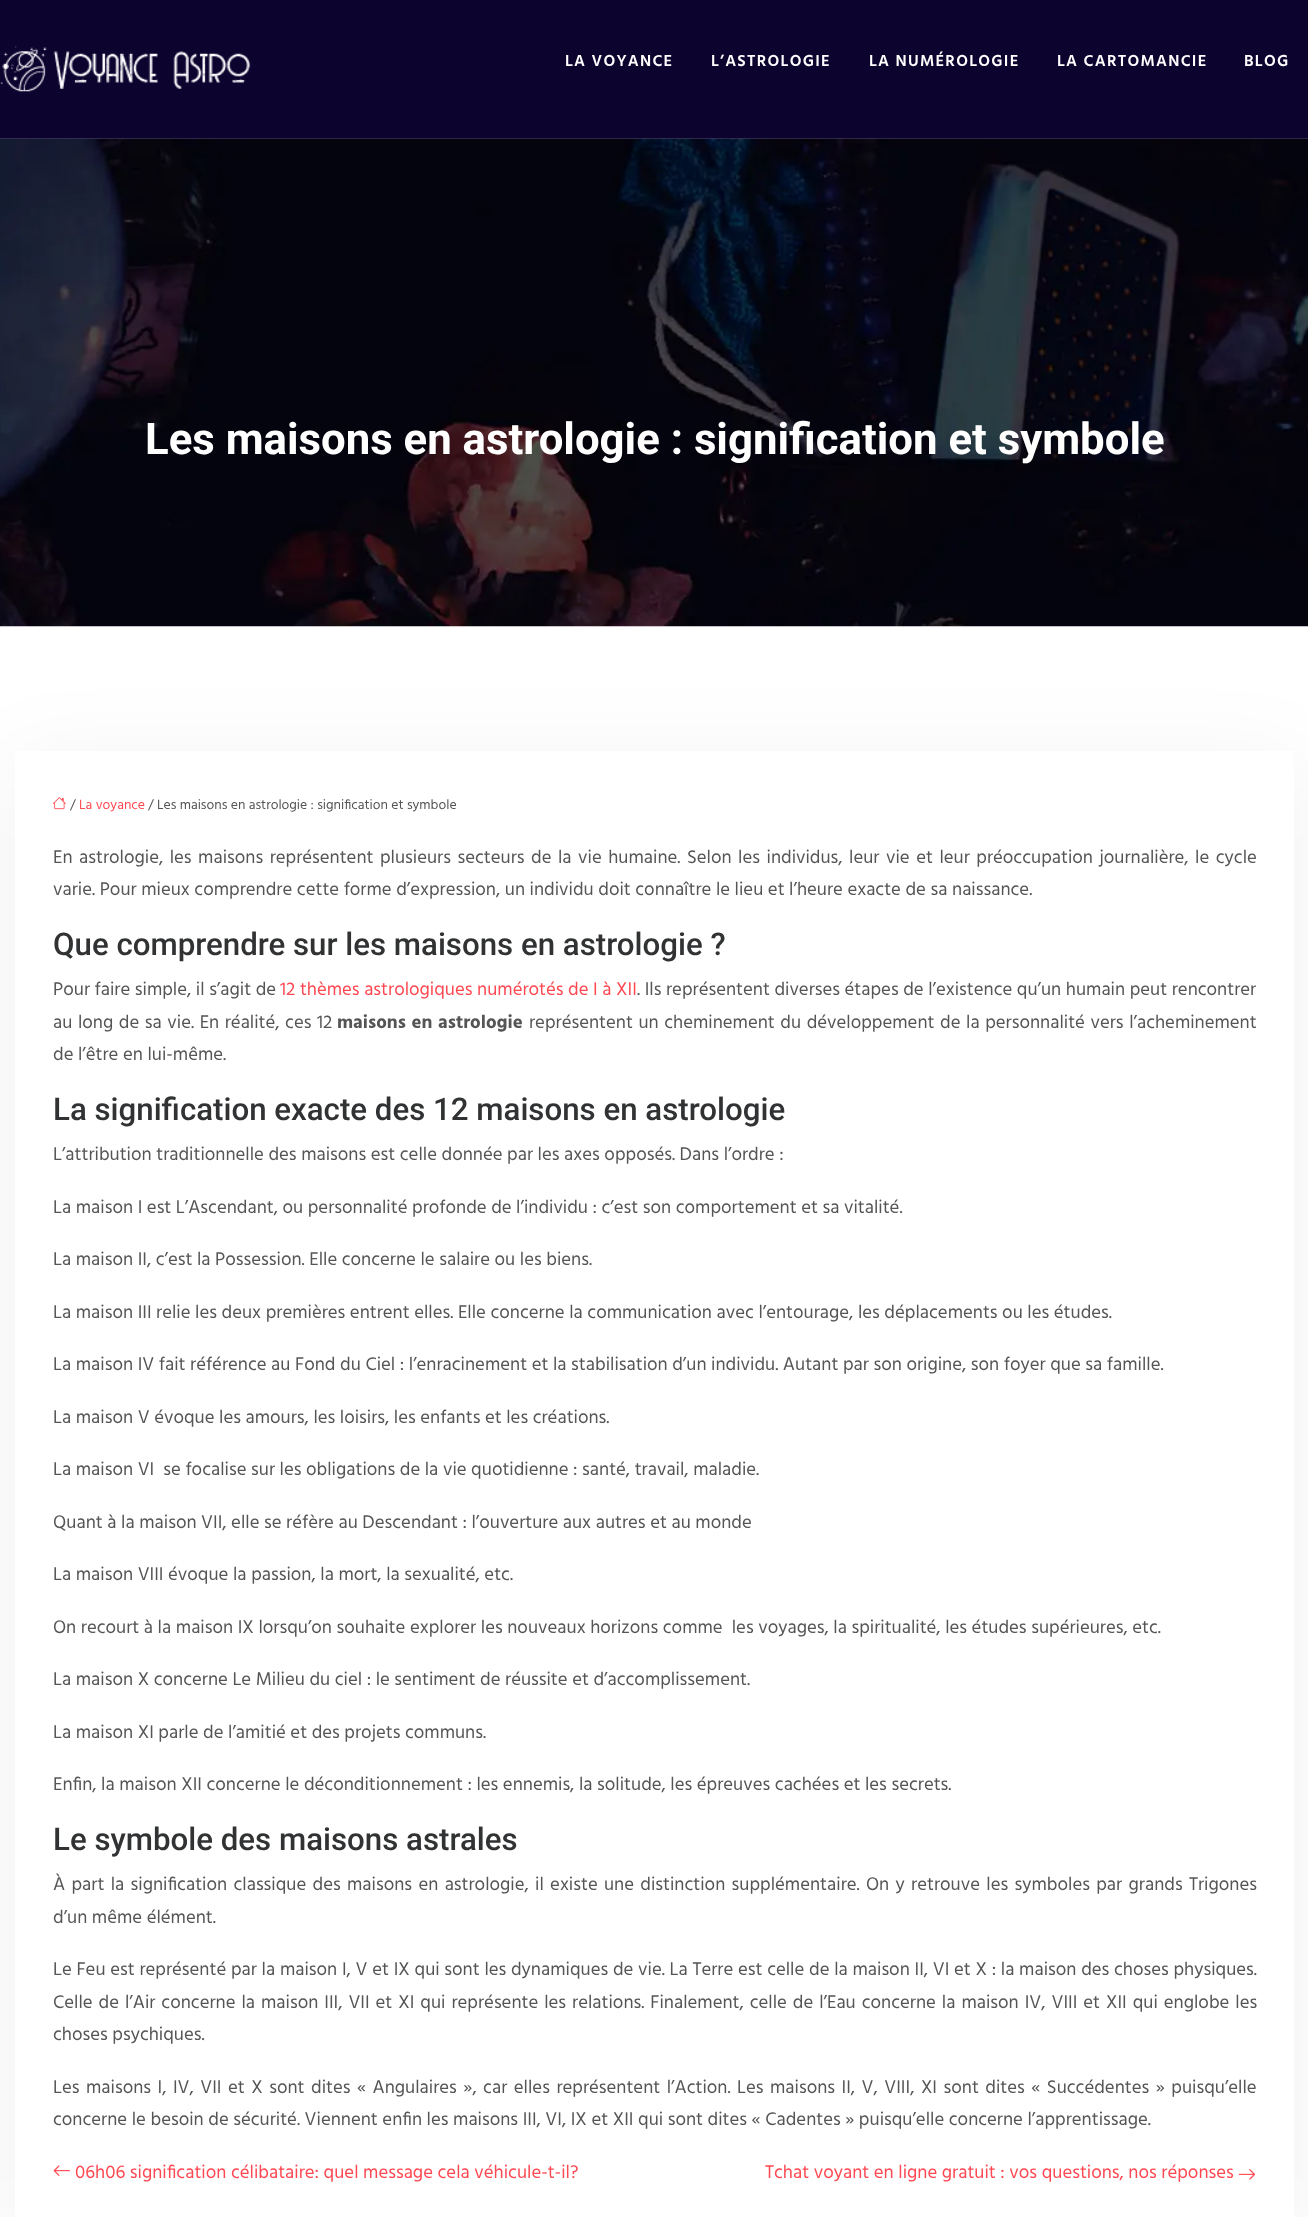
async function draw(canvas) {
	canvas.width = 1308;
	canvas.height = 2217;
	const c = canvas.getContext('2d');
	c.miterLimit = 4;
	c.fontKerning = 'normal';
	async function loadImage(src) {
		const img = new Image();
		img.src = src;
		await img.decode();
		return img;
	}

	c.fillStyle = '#fff';
	c.fillRect(0, 0, 1308, 2217);
	c.fillStyle = '#0c032f';
	c.fillRect(0, 0, 1308, 138);
	c.fillStyle = '#3d3559';
	c.fillRect(0, 138, 1308, 1);
	c.drawImage(await loadImage('img1.png'), 0, 46, 251, 46);
	c.letterSpacing = '1.25px';
	c.font = '600 16.25px Hind';
	c.fillStyle = '#fff';
	for (const [text, x, y] of [
		['LA VOYANCE', 565, 66],
		['L’ASTROLOGIE', 711, 66],
		['LA NUMÉROLOGIE', 869, 66],
		['LA CARTOMANCIE', 1057, 66],
		['BLOG', 1244, 66],
	]) {
		c.fillText(text, x, y);
	}
	c.fillStyle = '#0000000f';
	c.filter = 'blur(47.5px)';
	c.beginPath();
	c.rect(15, 770, 1279, 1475);
	c.fill();
	c.filter = 'none';
	c.drawImage(await loadImage('img2.png'), 0, 138, 1308, 489);
	c.letterSpacing = '0px';
	c.font = 'bold 43.75px Roboto';
	c.fillStyle = '#fff';
	c.fillText('Les maisons en astrologie : signification et symbole', 145, 454);
	c.fillRect(15, 751, 1279, 1466);
	c.drawImage(await loadImage('img3.png'), 53, 797, 13, 13);
	c.font = '13.75px Hind';
	c.fillStyle = '#555';
	c.fillText('/', 70, 809);
	c.fillStyle = '#ff4952';
	c.fillText('La voyance', 79, 809);
	c.fillStyle = '#555';
	c.fillText('/ Les maisons en astrologie : signification et symbole', 148, 809);
	c.wordSpacing = '1.95px';
	c.font = '18.75px Hind';
	c.fillText('En astrologie, les maisons représentent plusieurs secteurs de la vie humaine. Selon les individus, leur vie et leur préoccupation journalière, le cycle', 53, 863);
	c.wordSpacing = '0px';
	c.fillText('varie. Pour mieux comprendre cette forme d’expression, un individu doit connaître le lieu et l’heure exacte de sa naissance.', 53, 895);
	c.font = '500 31.25px Roboto';
	c.fillStyle = '#313233';
	c.fillText('Que comprendre sur les maisons en astrologie ?', 53, 955);
	c.font = '18.75px Hind';
	c.fillStyle = '#555';
	c.fillText('Pour faire simple, il s’agit de', 53, 995);
	c.fillStyle = '#ff4952';
	c.fillText('12 thèmes astrologiques numérotés de I à XII', 280, 995);
	c.fillStyle = '#555';
	c.fillText('. Ils représentent diverses étapes de l’existence qu’un humain peut rencontrer', 637, 995);
	c.wordSpacing = '1px';
	c.fillText('au long de sa vie. En réalité, ces 12', 53, 1028);
	c.font = 'bold 18.75px Hind';
	c.fillText('maisons en astrologie', 337, 1028);
	c.font = '18.75px Hind';
	c.fillText('représentent un cheminement du développement de la personnalité vers l’acheminement', 529, 1028);
	c.wordSpacing = '0px';
	c.fillText('de l’être en lui-même.', 53, 1060);
	c.font = '500 31.25px Roboto';
	c.fillStyle = '#313233';
	c.fillText('La signification exacte des 12 maisons en astrologie', 53, 1120);
	c.font = '18.75px Hind';
	c.fillStyle = '#555';
	for (const [text, x, y] of [
		['L’attribution traditionnelle des maisons est celle donnée par les axes opposés. Dans l’ordre :', 53, 1160],
		['La maison I est L’Ascendant, ou personnalité profonde de l’individu : c’est son comportement et sa vitalité.', 53, 1213],
		['La maison II, c’est la Possession. Elle concerne le salaire ou les biens.', 53, 1265],
		['La maison III relie les deux premières entrent elles. Elle concerne la communication avec l’entourage, les déplacements ou les études.', 53, 1318],
		['La maison IV fait référence au Fond du Ciel : l’enracinement et la stabilisation d’un individu. Autant par son origine, son foyer que sa famille.', 53, 1370],
		['La maison V évoque les amours, les loisirs, les enfants et les créations.', 53, 1423],
		['La maison VI  se focalise sur les obligations de la vie quotidienne : santé, travail, maladie.', 53, 1475],
		['Quant à la maison VII, elle se réfère au Descendant : l’ouverture aux autres et au monde', 53, 1528],
		['La maison VIII évoque la passion, la mort, la sexualité, etc.', 53, 1580],
		['On recourt à la maison IX lorsqu’on souhaite explorer les nouveaux horizons comme  les voyages, la spiritualité, les études supérieures, etc.', 53, 1633],
		['La maison X concerne Le Milieu du ciel : le sentiment de réussite et d’accomplissement.', 53, 1685],
		['La maison XI parle de l’amitié et des projets communs.', 53, 1738],
		['Enfin, la maison XII concerne le déconditionnement : les ennemis, la solitude, les épreuves cachées et les secrets.', 53, 1790],
	]) {
		c.fillText(text, x, y);
	}
	c.font = '500 31.25px Roboto';
	c.fillStyle = '#313233';
	c.fillText('Le symbole des maisons astrales', 53, 1850);
	c.wordSpacing = '1.75px';
	c.font = '18.75px Hind';
	c.fillStyle = '#555';
	c.fillText('À part la signification classique des maisons en astrologie, il existe une distinction supplémentaire. On y retrouve les symboles par grands Trigones', 53, 1890);
	c.wordSpacing = '0px';
	c.fillText('d’un même élément.', 53, 1923);
	c.wordSpacing = '0.15px';
	c.fillText('Le Feu est représenté par la maison I, V et IX qui sont les dynamiques de vie. La Terre est celle de la maison II, VI et X : la maison des choses physiques.', 53, 1975);
	c.wordSpacing = '1.4px';
	c.fillText('Celle de l’Air concerne la maison III, VII et XI qui représente les relations. Finalement, celle de l’Eau concerne la maison IV, VIII et XII qui englobe les', 53, 2008);
	c.wordSpacing = '0px';
	c.fillText('choses psychiques.', 53, 2040);
	c.wordSpacing = '1.95px';
	c.fillText('Les maisons I, IV, VII et X sont dites « Angulaires », car elles représentent l’Action. Les maisons II, V, VIII, XI sont dites « Succédentes » puisqu’elle', 53, 2093);
	c.wordSpacing = '0px';
	c.fillText('concerne le besoin de sécurité. Viennent enfin les maisons III, VI, IX et XII qui sont dites « Cadentes » puisqu’elle concerne l’apprentissage.', 53, 2125);
	c.drawImage(await loadImage('img4.png'), 53, 2165, 17, 11);
	c.fillStyle = '#ff4952';
	c.fillText('06h06 signification célibataire: quel message cela véhicule-t-il?', 75, 2178);
	c.fillText('Tchat voyant en ligne gratuit : vos questions, nos réponses', 765, 2178);
	c.drawImage(await loadImage('img5.png'), 1238, 2169, 17, 11);
}

draw(document.querySelector('canvas'));
